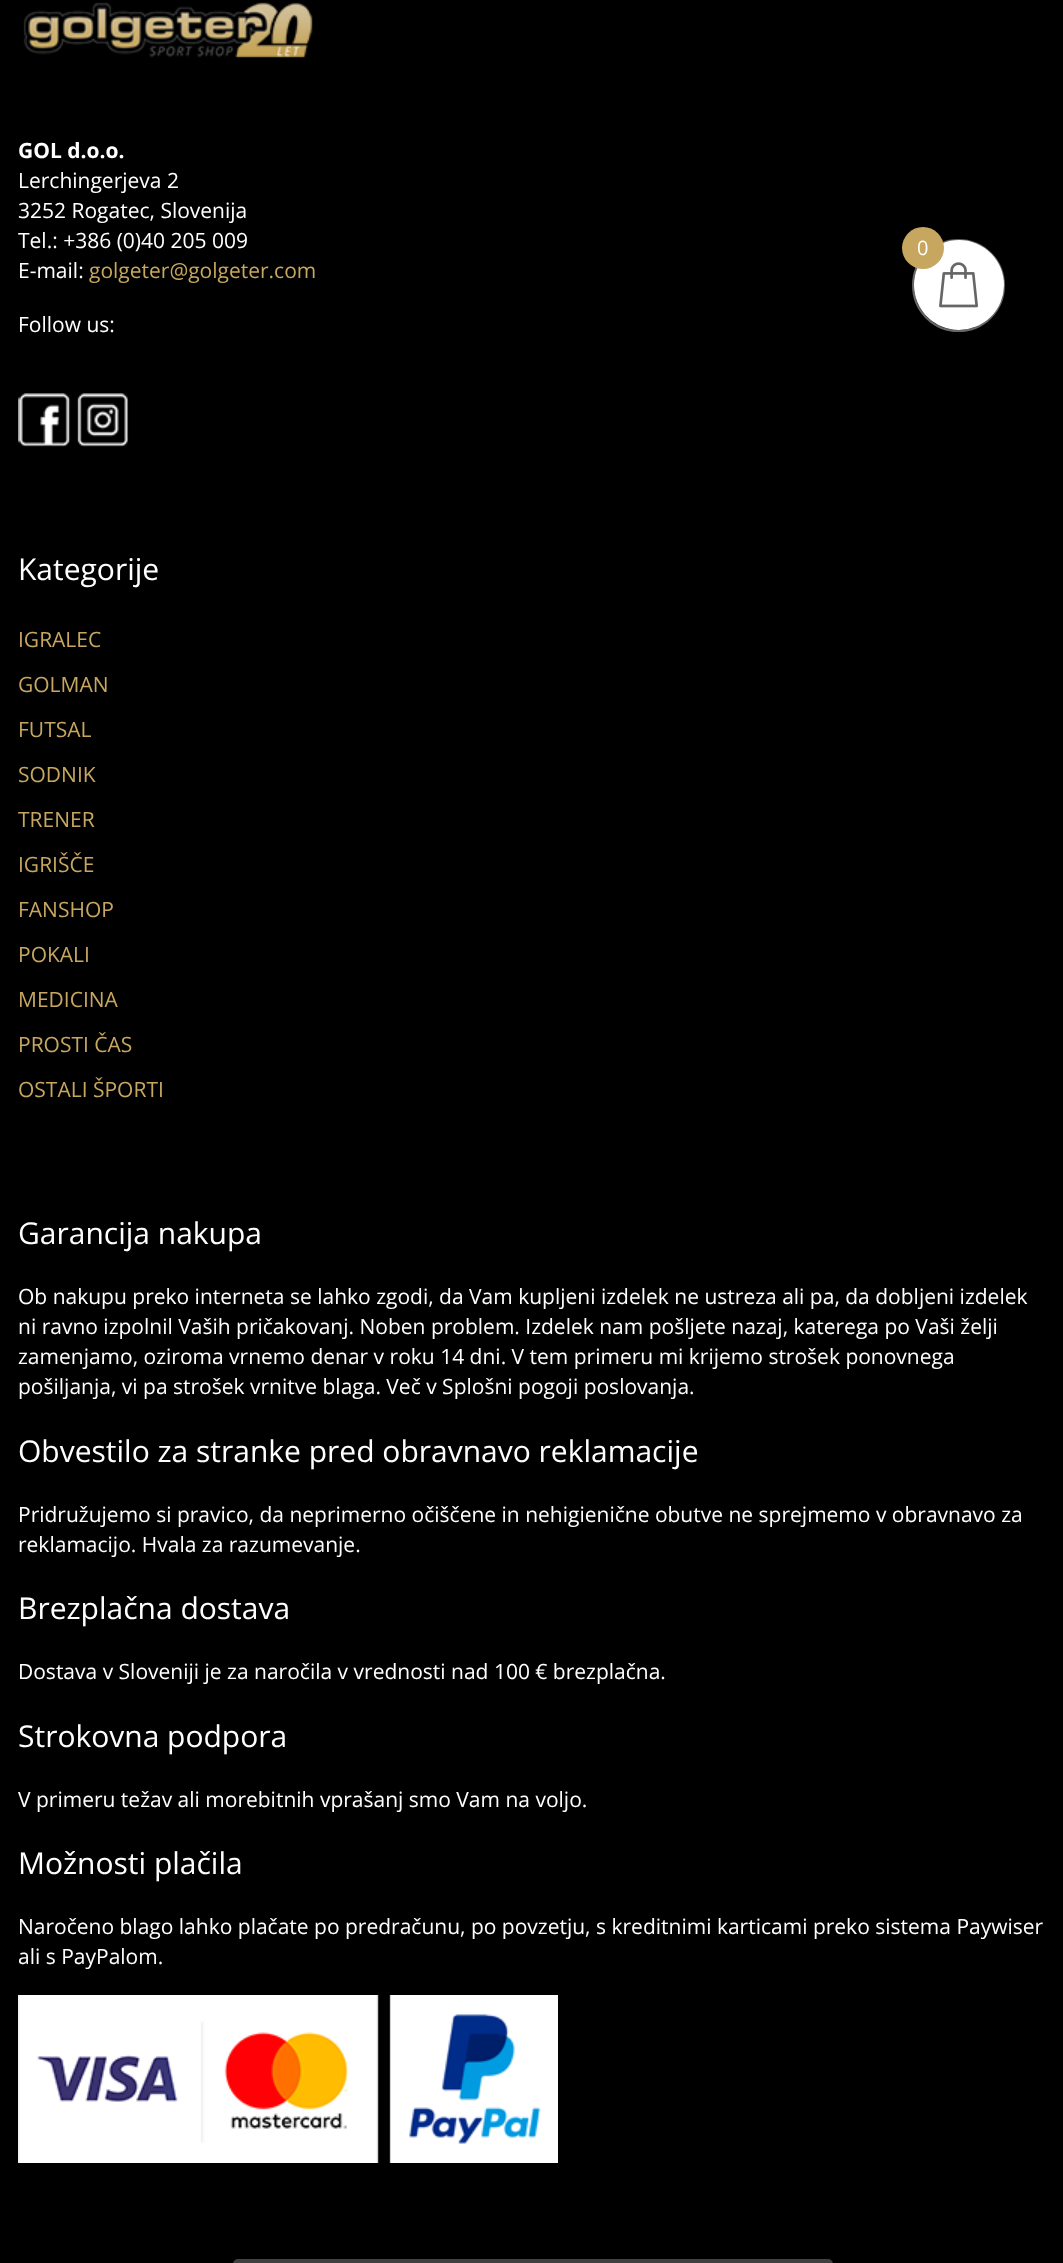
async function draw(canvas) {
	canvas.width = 1063;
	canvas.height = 2263;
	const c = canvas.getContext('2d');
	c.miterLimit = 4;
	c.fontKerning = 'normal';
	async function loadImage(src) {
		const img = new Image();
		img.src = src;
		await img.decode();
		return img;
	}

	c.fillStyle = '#000';
	c.fillRect(0, 0, 1063, 2263);
	c.drawImage(await loadImage('img1.png'), 23, 2, 290, 56);
	c.font = 'bold 21px Open Sans';
	c.fillStyle = '#fff';
	c.fillText('GOL d.o.o.', 18, 158);
	c.font = '21px Open Sans';
	for (const [text, x, y] of [
		['Lerchingerjeva 2', 18, 188],
		['3252 Rogatec, Slovenija', 18, 218],
		['Tel.: +386 (0)40 205 009', 18, 248],
		['E-mail:', 18, 278],
	]) {
		c.fillText(text, x, y);
	}
	c.fillStyle = '#c7a760';
	c.fillText('golgeter@golgeter.com', 89, 278);
	c.fillStyle = '#fff';
	c.fillText('Follow us:', 18, 332);
	c.drawImage(await loadImage('img2.png'), 18, 393, 53, 54);
	c.drawImage(await loadImage('img3.png'), 77, 393, 52, 54);
	c.font = '30px Open Sans';
	c.fillText('Kategorije', 18, 580);
	c.font = '21px Open Sans';
	c.fillStyle = '#c7a760';
	for (const [text, x, y] of [
		['IGRALEC', 18, 647],
		['GOLMAN', 18, 692],
		['FUTSAL', 18, 737],
		['SODNIK', 18, 782],
		['TRENER', 18, 827],
		['IGRIŠČE', 18, 872],
		['FANSHOP', 18, 917],
		['POKALI', 18, 962],
		['MEDICINA', 18, 1007],
		['PROSTI ČAS', 18, 1052],
		['OSTALI ŠPORTI', 18, 1097],
	]) {
		c.fillText(text, x, y);
	}
	c.font = '30px Open Sans';
	c.fillStyle = '#fff';
	c.fillText('Garancija nakupa', 18, 1244);
	c.font = '21px Open Sans';
	for (const [text, x, y] of [
		['Ob nakupu preko interneta se lahko zgodi, da Vam kupljeni izdelek ne ustreza ali pa, da dobljeni izdelek', 18, 1304],
		['ni ravno izpolnil Vaših pričakovanj. Noben problem. Izdelek nam pošljete nazaj, katerega po Vaši želji', 18, 1334],
		['zamenjamo, oziroma vrnemo denar v roku 14 dni. V tem primeru mi krijemo strošek ponovnega', 18, 1364],
		['pošiljanja, vi pa strošek vrnitve blaga. Več v Splošni pogoji poslovanja.', 18, 1394],
	]) {
		c.fillText(text, x, y);
	}
	c.font = '30px Open Sans';
	c.fillText('Obvestilo za stranke pred obravnavo reklamacije', 18, 1462);
	c.font = '21px Open Sans';
	c.fillText('Pridružujemo si pravico, da neprimerno očiščene in nehigienične obutve ne sprejmemo v obravnavo za', 18, 1522);
	c.fillText('reklamacijo. Hvala za razumevanje.', 18, 1552);
	c.font = '30px Open Sans';
	c.fillText('Brezplačna dostava', 18, 1619);
	c.font = '21px Open Sans';
	c.fillText('Dostava v Sloveniji je za naročila v vrednosti nad 100 € brezplačna.', 18, 1679);
	c.font = '30px Open Sans';
	c.fillText('Strokovna podpora', 18, 1747);
	c.font = '21px Open Sans';
	c.fillText('V primeru težav ali morebitnih vprašanj smo Vam na voljo.', 18, 1807);
	c.font = '30px Open Sans';
	c.fillText('Možnosti plačila', 18, 1874);
	c.font = '21px Open Sans';
	c.fillText('Naročeno blago lahko plačate po predračunu, po povzetju, s kreditnimi karticami preko sistema Paywiser', 18, 1934);
	c.fillText('ali s PayPalom.', 18, 1964);
	c.drawImage(await loadImage('img4.png'), 18, 1995, 540, 168);
	c.fillStyle = '#404040';
	c.beginPath();
	c.roundRect(233, 2259, 600, 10, 6);
	c.fill();
	c.beginPath();
	c.arc(958.5, 285.5, 45.5, 0, 2 * Math.PI);
	c.strokeStyle = '#666';
	c.lineWidth = 2;
	c.stroke();
	c.fillStyle = '#fff';
	c.beginPath();
	c.arc(959, 285, 45, 0, 2 * Math.PI);
	c.fill();
	c.drawImage(await loadImage('img5.png'), 939, 262, 39, 46);
	c.fillStyle = '#c7a760';
	c.beginPath();
	c.arc(923, 248, 21, 0, 2 * Math.PI);
	c.fill();
	c.font = '20px Open Sans';
	c.fillStyle = '#fff';
	c.fillText('0', 917, 255);
}

draw(document.querySelector('canvas'));
